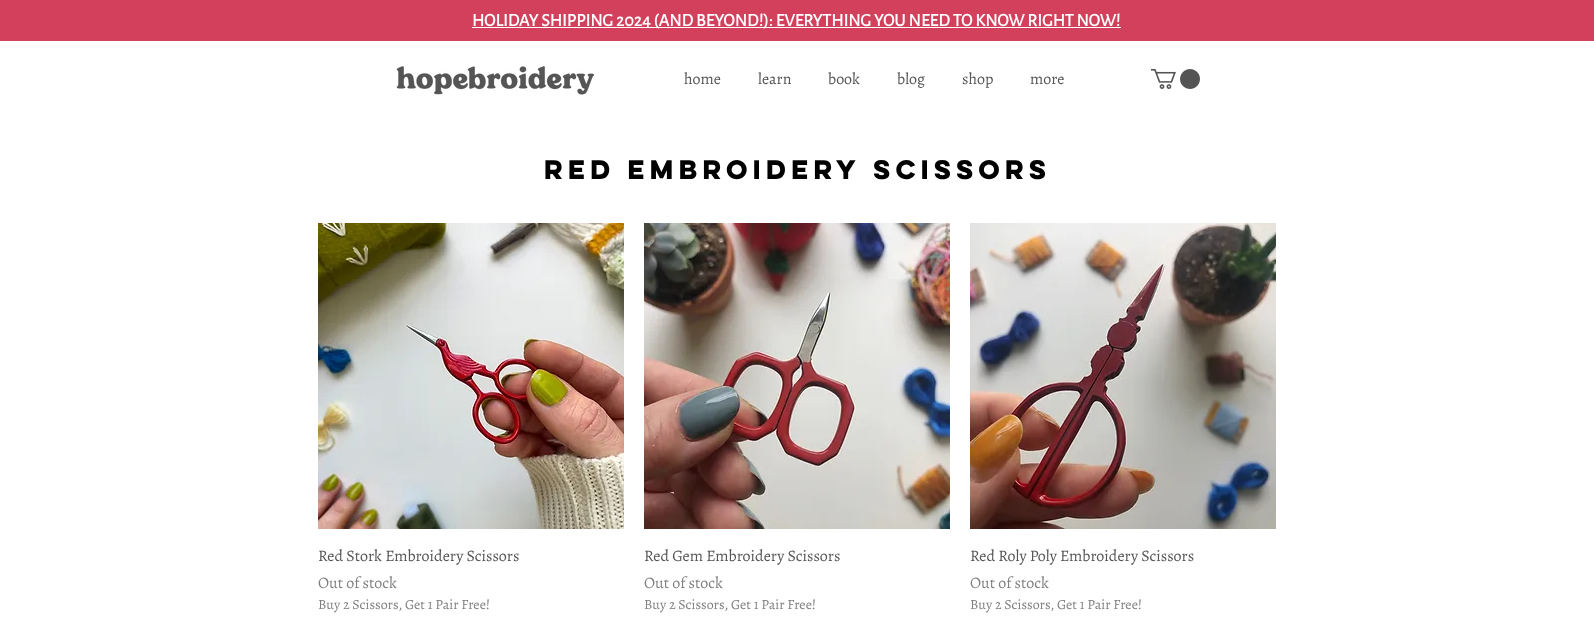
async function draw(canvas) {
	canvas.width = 1594;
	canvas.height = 631;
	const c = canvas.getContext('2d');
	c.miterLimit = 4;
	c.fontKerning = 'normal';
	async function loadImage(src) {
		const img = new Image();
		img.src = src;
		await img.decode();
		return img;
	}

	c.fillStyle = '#fff';
	c.fillRect(0, 0, 1594, 631);
	c.fillStyle = '#d3405c';
	c.fillRect(0, 0, 1594, 41);
	c.fillStyle = '#fff';
	c.fillRect(472, 27, 649, 1);
	c.font = 'bold 18px Alegreya Sans';
	c.fillText('HOLIDAY SHIPPING 2024 (AND BEYOND!): EVERYTHING YOU NEED TO KNOW RIGHT NOW!', 472, 26);
	c.drawImage(await loadImage('img1.png'), 396, 66, 199, 29);
	c.font = '16px Alegreya';
	c.fillStyle = '#555';
	for (const [text, x, y] of [
		['home', 684, 84],
		['learn', 758, 84],
		['book', 828, 84],
		['blog', 897, 84],
		['shop', 962, 84],
		['more', 1030, 84],
	]) {
		c.fillText(text, x, y);
	}
	c.drawImage(await loadImage('img2.png'), 1151, 69, 49, 20);
	c.font = 'bold 24px "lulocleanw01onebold"';
	c.fillStyle = '#000';
	c.fillText('red embroidery scissors', 544, 179);
	c.drawImage(await loadImage('img3.png'), 318, 223, 306, 306);
	c.font = '16px Alegreya';
	c.fillStyle = '#555';
	c.fillText('Red Stork Embroidery Scissors', 318, 561);
	c.fillStyle = '#808080';
	c.fillText('Out of stock', 318, 588);
	c.font = '14px Alegreya';
	c.fillText('Buy 2 Scissors, Get 1 Pair Free!', 318, 609);
	c.drawImage(await loadImage('img4.png'), 644, 223, 306, 306);
	c.font = '16px Alegreya';
	c.fillStyle = '#555';
	c.fillText('Red Gem Embroidery Scissors', 644, 561);
	c.fillStyle = '#808080';
	c.fillText('Out of stock', 644, 588);
	c.font = '14px Alegreya';
	c.fillText('Buy 2 Scissors, Get 1 Pair Free!', 644, 609);
	c.drawImage(await loadImage('img5.png'), 970, 223, 306, 306);
	c.font = '16px Alegreya';
	c.fillStyle = '#555';
	c.fillText('Red Roly Poly Embroidery Scissors', 970, 561);
	c.fillStyle = '#808080';
	c.fillText('Out of stock', 970, 588);
	c.font = '14px Alegreya';
	c.fillText('Buy 2 Scissors, Get 1 Pair Free!', 970, 609);
}

draw(document.querySelector('canvas'));
